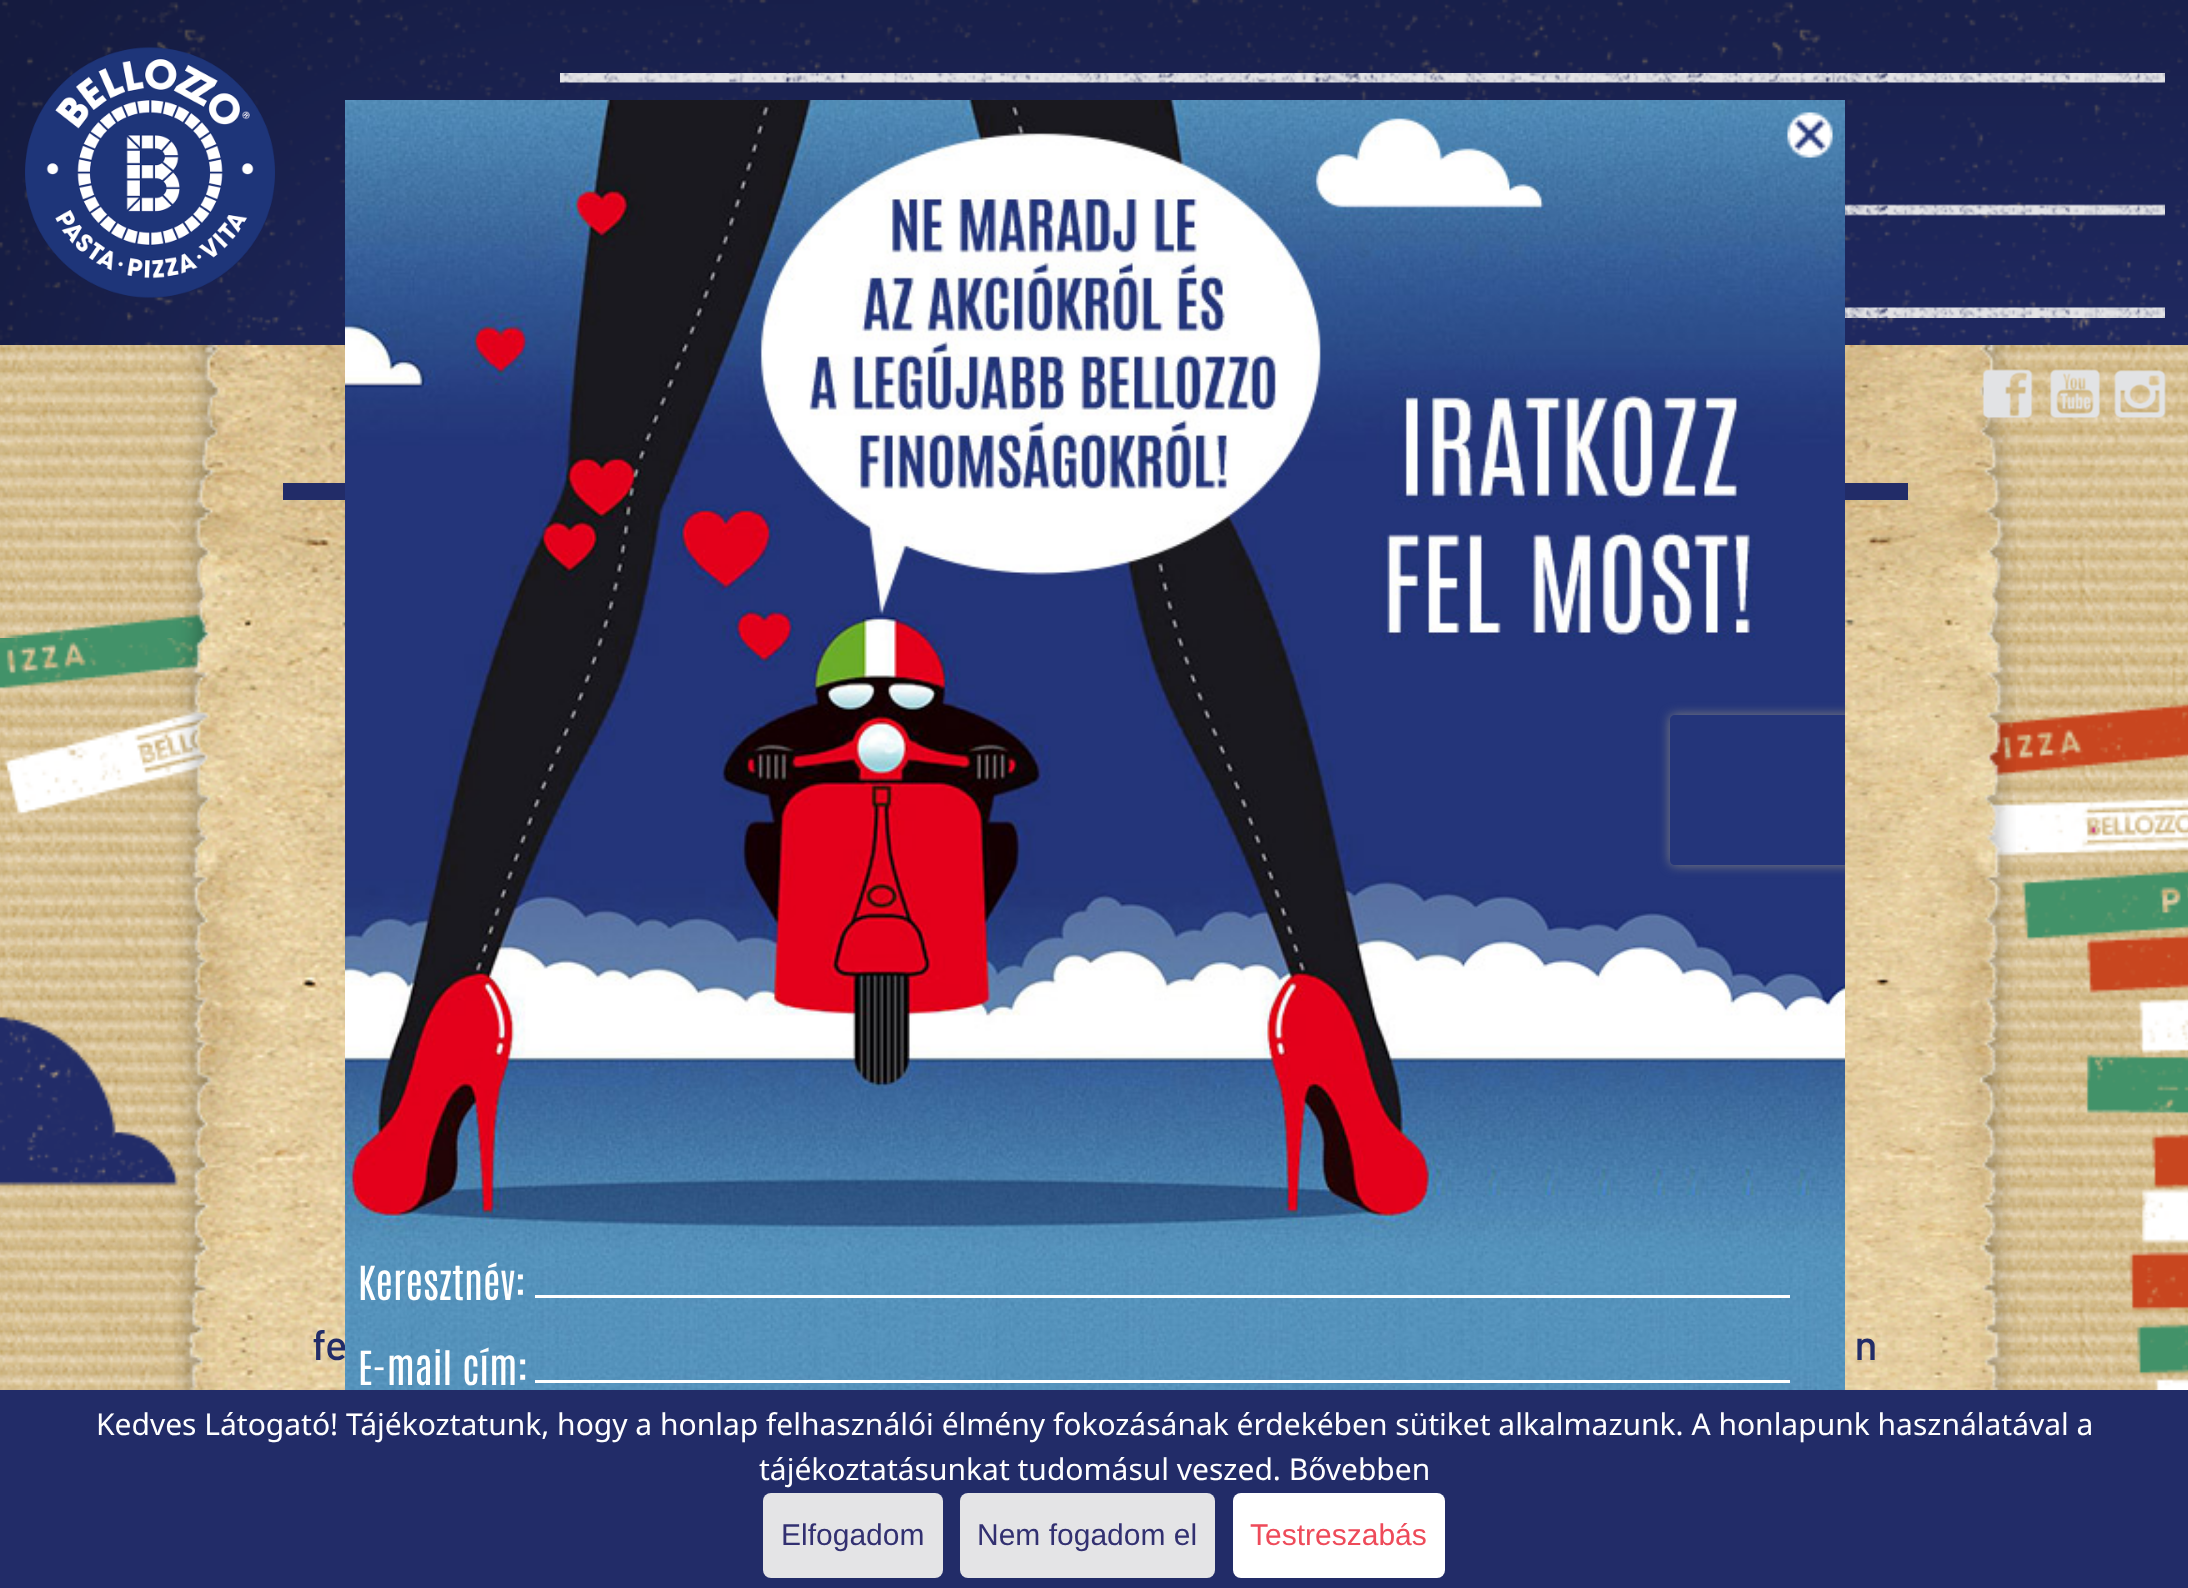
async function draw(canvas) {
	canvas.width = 2188;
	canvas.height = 1588;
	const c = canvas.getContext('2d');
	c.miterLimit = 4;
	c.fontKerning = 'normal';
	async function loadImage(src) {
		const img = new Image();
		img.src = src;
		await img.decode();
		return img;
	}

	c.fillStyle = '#fff';
	c.fillRect(0, 0, 2188, 1588);
	c.drawImage(await loadImage('img1.png'), 0, 345, 2188, 1045);
	c.drawImage(await loadImage('img2.png'), 0, 0, 2188, 345);
	c.drawImage(await loadImage('img3.png'), 25, 47, 250, 251);
	c.drawImage(await loadImage('img4.png'), 560, 73, 1605, 10);
	c.drawImage(await loadImage('img5.png'), 1845, 204, 320, 12);
	c.drawImage(await loadImage('img6.png'), 1845, 307, 320, 11);
	c.drawImage(await loadImage('img12.png'), 0, 345, 2188, 1045);
	c.drawImage(await loadImage('img13.png'), 174, 345, 1842, 1045);
	c.drawImage(await loadImage('img7.png'), 1982, 369, 51, 49);
	c.drawImage(await loadImage('img8.png'), 2050, 369, 50, 49);
	c.drawImage(await loadImage('img9.png'), 2114, 370, 52, 48);
	c.fillStyle = '#222c68';
	c.fillRect(283, 483, 1625, 17);
	c.font = '500 42px DIN';
	c.fillText('fe', 312, 1360);
	c.drawImage(await loadImage('img10.png'), 345, 100, 1500, 1290);
	c.drawImage(await loadImage('img11.png'), 1787, 112, 46, 46);
	c.save();
	c.beginPath();
	c.rect(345, 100, 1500, 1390);
	c.clip();
	c.beginPath();
	c.moveTo(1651, 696);
	c.lineTo(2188, 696);
	c.lineTo(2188, 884);
	c.lineTo(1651, 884);
	c.closePath();
	c.moveTo(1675, 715);
	c.lineTo(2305, 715);
	c.bezierCurveTo(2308, 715, 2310, 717, 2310, 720);
	c.lineTo(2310, 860);
	c.bezierCurveTo(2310, 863, 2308, 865, 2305, 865);
	c.lineTo(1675, 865);
	c.bezierCurveTo(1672, 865, 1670, 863, 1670, 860);
	c.lineTo(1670, 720);
	c.bezierCurveTo(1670, 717, 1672, 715, 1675, 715);
	c.closePath();
	c.clip('evenodd');
	c.fillStyle = '#808080';
	c.filter = 'blur(6px)';
	c.beginPath();
	c.roundRect(1670, 715, 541, 150, 5);
	c.fill();
	c.filter = 'none';
	c.restore();
	c.font = '40px Antonio';
	c.fillStyle = '#fff';
	c.fillText('Keresztnév:', 358, 1300);
	c.fillRect(535, 1295, 1255, 3);
	c.fillText('E-mail cím:', 358, 1385);
	c.fillRect(535, 1380, 1255, 3);
	c.font = '500 42px DIN';
	c.fillStyle = '#222c68';
	c.fillText('n', 1854, 1360);
	c.fillRect(0, 1390, 2188, 198);
	c.font = '30px Noto Sans';
	c.fillStyle = '#fff';
	c.fillText('Kedves Látogató! Tájékoztatunk, hogy a honlap felhasználói élmény fokozásának érdekében sütiket alkalmazunk. A honlapunk használatával a', 96, 1435);
	c.fillText('tájékoztatásunkat tudomásul veszed. Bővebben', 759, 1480);
	c.fillStyle = '#e4e4e6';
	c.beginPath();
	c.roundRect(763, 1493, 180, 85, 8);
	c.fill();
	c.font = '30px Liberation Sans';
	c.fillStyle = '#323071';
	c.fillText('Elfogadom', 781, 1545);
	c.fillStyle = '#e4e4e6';
	c.beginPath();
	c.roundRect(960, 1493, 255, 85, 8);
	c.fill();
	c.fillStyle = '#323071';
	c.fillText('Nem fogadom el', 977, 1545);
	c.fillStyle = '#fff';
	c.beginPath();
	c.roundRect(1233, 1493, 212, 85, 8);
	c.fill();
	c.fillStyle = '#ee4b5a';
	c.fillText('Testreszabás', 1250, 1545);
}

draw(document.querySelector('canvas'));
